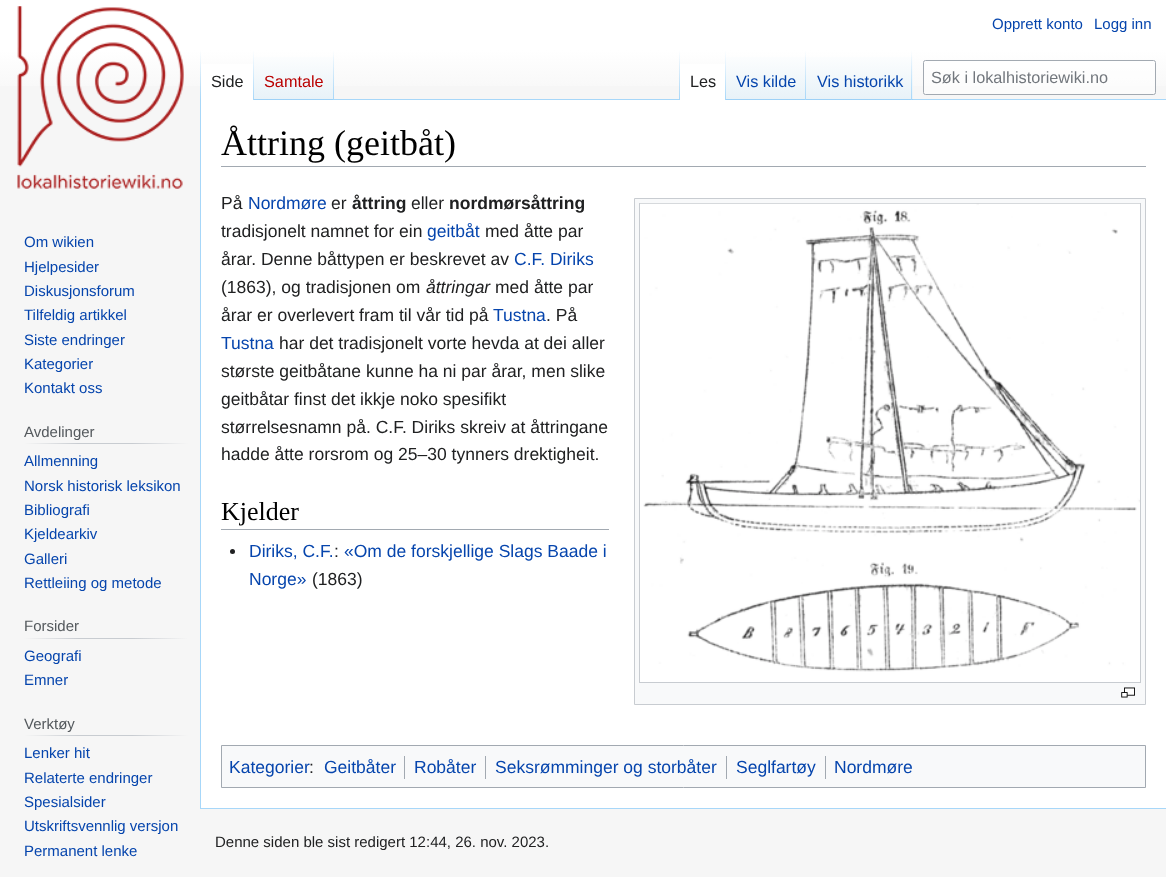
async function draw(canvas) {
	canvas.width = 1166;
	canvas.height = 877;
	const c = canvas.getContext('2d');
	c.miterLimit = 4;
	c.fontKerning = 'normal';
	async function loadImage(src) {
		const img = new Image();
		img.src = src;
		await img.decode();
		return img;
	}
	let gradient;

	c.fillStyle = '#f6f6f6';
	c.fillRect(0, 0, 1166, 877);
	gradient = c.createLinearGradient(583, 0, 583, 100);
	gradient.addColorStop(0.5, '#fff');
	gradient.addColorStop(1, '#f6f6f6');
	c.fillStyle = gradient;
	c.fillRect(0, 0, 1166, 86);
	c.font = '15px Liberation Sans';
	c.fillStyle = '#0645ad';
	c.fillText('Opprett konto', 992, 29);
	c.fillText('Logg inn', 1094, 29);
	c.fillStyle = '#a7d7f9';
	c.fillRect(200, 808, 966, 1);
	c.fillRect(200, 99, 1, 710);
	gradient = c.createLinearGradient(201, 50, 201, 100);
	gradient.addColorStop(0, '#a7d7f900');
	gradient.addColorStop(1, '#a7d7f9');
	c.fillStyle = gradient;
	c.fillRect(200, 50, 1, 50);
	c.fillStyle = '#fff';
	c.fillRect(201, 64, 52, 36);
	gradient = c.createLinearGradient(253, 50, 253, 100);
	gradient.addColorStop(0, '#fff');
	gradient.addColorStop(1, '#a7d7f9');
	c.fillStyle = gradient;
	c.fillRect(253, 50, 1, 50);
	c.font = '16.25px Liberation Sans';
	c.fillStyle = '#202122';
	c.fillText('Side', 211, 87);
	gradient = c.createLinearGradient(294, 100, 294, 50);
	gradient.addColorStop(0, '#77c1f6');
	gradient.addColorStop(0.03, '#e8f2f8');
	gradient.addColorStop(1, '#fff');
	c.fillStyle = gradient;
	c.fillRect(254, 57, 80, 43);
	gradient = c.createLinearGradient(333, 50, 333, 100);
	gradient.addColorStop(0, '#a7d7f900');
	gradient.addColorStop(1, '#a7d7f9');
	c.fillStyle = gradient;
	c.fillRect(333, 50, 1, 50);
	c.fillStyle = '#ba0000';
	c.fillText('Samtale', 264, 87);
	c.fillStyle = '#a7d7f9';
	c.fillRect(334, 99, 832, 1);
	gradient = c.createLinearGradient(679, 50, 679, 100);
	gradient.addColorStop(0, '#a7d7f900');
	gradient.addColorStop(1, '#a7d7f9');
	c.fillStyle = gradient;
	c.fillRect(679, 50, 1, 50);
	c.fillStyle = '#fff';
	c.fillRect(680, 64, 45, 36);
	gradient = c.createLinearGradient(726, 50, 726, 100);
	gradient.addColorStop(0, '#fff');
	gradient.addColorStop(1, '#a7d7f9');
	c.fillStyle = gradient;
	c.fillRect(725, 50, 1, 50);
	c.fillStyle = '#202122';
	c.fillText('Les', 690, 87);
	gradient = c.createLinearGradient(766, 100, 766, 50);
	gradient.addColorStop(0, '#77c1f6');
	gradient.addColorStop(0.03, '#e8f2f8');
	gradient.addColorStop(1, '#fff');
	c.fillStyle = gradient;
	c.fillRect(726, 57, 80, 43);
	gradient = c.createLinearGradient(806, 50, 806, 100);
	gradient.addColorStop(0, '#a7d7f900');
	gradient.addColorStop(1, '#a7d7f9');
	c.fillStyle = gradient;
	c.fillRect(805, 50, 1, 50);
	c.fillStyle = '#0645ad';
	c.fillText('Vis kilde', 736, 87);
	gradient = c.createLinearGradient(859, 100, 859, 50);
	gradient.addColorStop(0, '#77c1f6');
	gradient.addColorStop(0.03, '#e8f2f8');
	gradient.addColorStop(1, '#fff');
	c.fillStyle = gradient;
	c.fillRect(806, 57, 107, 43);
	gradient = c.createLinearGradient(912, 50, 912, 100);
	gradient.addColorStop(0, '#a7d7f900');
	gradient.addColorStop(1, '#a7d7f9');
	c.fillStyle = gradient;
	c.fillRect(911, 50, 1, 50);
	c.fillStyle = '#0645ad';
	c.fillText('Vis historikk', 817, 87);
	c.fillStyle = '#ffffff80';
	c.beginPath();
	c.roundRect(923.5, 60.5, 232, 34, 2);
	c.fill();
	c.strokeStyle = '#a2a9b1';
	c.stroke();
	c.fillStyle = '#72777d';
	c.fillText('Søk i lokalhistoriewiki.no', 931, 83);
	c.drawImage(await loadImage('img1.png'), 17, 6, 167, 183);
	c.font = '15px Liberation Sans';
	c.fillStyle = '#0645ad';
	for (const [text, x, y] of [
		['Om wikien', 24, 247],
		['Hjelpesider', 24, 272],
		['Diskusjonsforum', 24, 296],
		['Tilfeldig artikkel', 24, 320],
		['Siste endringer', 24, 345],
		['Kategorier', 24, 369],
		['Kontakt oss', 24, 393],
	]) {
		c.fillText(text, x, y);
	}
	gradient = c.createLinearGradient(24, 443, 188, 443);
	gradient.addColorStop(0, '#f6f6f6');
	gradient.addColorStop(0.33, '#c8ccd1');
	gradient.addColorStop(0.66, '#c8ccd1');
	gradient.addColorStop(1, '#f6f6f6');
	c.fillStyle = gradient;
	c.fillRect(24, 443, 164, 1);
	c.fillStyle = '#54595d';
	c.fillText('Avdelinger', 24, 437);
	c.fillStyle = '#0645ad';
	for (const [text, x, y] of [
		['Allmenning', 24, 466],
		['Norsk historisk leksikon', 24, 491],
		['Bibliografi', 24, 515],
		['Kjeldearkiv', 24, 539],
		['Galleri', 24, 564],
		['Rettleiing og metode', 24, 588],
	]) {
		c.fillText(text, x, y);
	}
	gradient = c.createLinearGradient(24, 638, 188, 638);
	gradient.addColorStop(0, '#f6f6f6');
	gradient.addColorStop(0.33, '#c8ccd1');
	gradient.addColorStop(0.66, '#c8ccd1');
	gradient.addColorStop(1, '#f6f6f6');
	c.fillStyle = gradient;
	c.fillRect(24, 638, 164, 1);
	c.fillStyle = '#54595d';
	c.fillText('Forsider', 24, 631);
	c.fillStyle = '#0645ad';
	c.fillText('Geografi', 24, 661);
	c.fillText('Emner', 24, 685);
	gradient = c.createLinearGradient(24, 736, 188, 736);
	gradient.addColorStop(0, '#f6f6f6');
	gradient.addColorStop(0.33, '#c8ccd1');
	gradient.addColorStop(0.66, '#c8ccd1');
	gradient.addColorStop(1, '#f6f6f6');
	c.fillStyle = gradient;
	c.fillRect(24, 735, 164, 1);
	c.fillStyle = '#54595d';
	c.fillText('Verktøy', 24, 729);
	c.fillStyle = '#0645ad';
	for (const [text, x, y] of [
		['Lenker hit', 24, 758],
		['Relaterte endringer', 24, 783],
		['Spesialsider', 24, 807],
		['Utskriftsvennlig versjon', 24, 831],
		['Permanent lenke', 24, 856],
	]) {
		c.fillText(text, x, y);
	}
	c.fillStyle = '#fff';
	c.fillRect(201, 100, 965, 708);
	c.fillStyle = '#a2a9b1';
	c.fillRect(221, 166, 925, 1);
	c.font = '36px Liberation Serif';
	c.fillStyle = '#000';
	c.fillText('Åttring (geitbåt)', 221, 155);
	c.font = '17.5px Liberation Sans';
	c.fillStyle = '#202122';
	c.fillText('På', 221, 209);
	c.fillStyle = '#0645ad';
	c.fillText('Nordmøre', 248, 209);
	c.fillStyle = '#202122';
	c.fillText('er', 331, 209);
	c.font = 'bold 17.5px Liberation Sans';
	c.fillText('åttring', 352, 209);
	c.font = '17.5px Liberation Sans';
	c.fillText('eller', 411, 209);
	c.font = 'bold 17.5px Liberation Sans';
	c.fillText('nordmørsåttring', 449, 209);
	c.font = '17.5px Liberation Sans';
	c.fillText('tradisjonelt namnet for ein', 221, 237);
	c.fillStyle = '#0645ad';
	c.fillText('geitbåt', 427, 237);
	c.fillStyle = '#202122';
	c.fillText('med åtte par', 485, 237);
	c.fillText('årar. Denne båttypen er beskrevet av', 221, 265);
	c.fillStyle = '#0645ad';
	c.fillText('C.F. Diriks', 514, 265);
	c.fillStyle = '#202122';
	c.fillText('(1863), og tradisjonen om', 221, 293);
	c.font = 'italic 17.5px Liberation Sans';
	c.fillText('åttringar', 426, 293);
	c.font = '17.5px Liberation Sans';
	c.fillText('med åtte par', 495, 293);
	c.fillText('årar er overlevert fram til vår tid på', 221, 321);
	c.fillStyle = '#0645ad';
	c.fillText('Tustna', 493, 321);
	c.fillStyle = '#202122';
	c.fillText('. På', 546, 321);
	c.fillStyle = '#0645ad';
	c.fillText('Tustna', 221, 349);
	c.fillStyle = '#202122';
	for (const [text, x, y] of [
		['har det tradisjonelt vorte hevda at dei aller', 279, 349],
		['største geitbåtane kunne ha ni par årar, men slike', 221, 377],
		['geitbåtar finst det ikkje noko spesifikt', 221, 405],
		['størrelsesnamn på. C.F. Diriks skreiv at åttringane', 221, 433],
		['hadde åtte rorsrom og 25–30 tynners drektigheit.', 221, 460],
	]) {
		c.fillText(text, x, y);
	}
	c.fillStyle = '#f8f9fa';
	c.beginPath();
	c.rect(634.5, 198.5, 511, 506);
	c.fill();
	c.strokeStyle = '#c8ccd1';
	c.stroke();
	c.fillStyle = '#fff';
	c.fillRect(640, 672, 500, 10);
	c.strokeRect(639.5, 203.5, 501, 479);
	c.drawImage(await loadImage('img2.png'), 640, 203, 500, 469);
	c.drawImage(await loadImage('img3.png'), 1121, 687, 14, 11);
	c.fillStyle = '#a2a9b1';
	c.fillRect(221, 529, 388, 1);
	c.font = '26px Liberation Serif';
	c.fillStyle = '#000';
	c.fillText('Kjelder', 221, 520);
	c.fillStyle = '#202122';
	c.beginPath();
	c.arc(232.5, 551.5, 2.5, 0, 2 * Math.PI);
	c.fill();
	c.font = '17.5px Liberation Sans';
	c.fillStyle = '#0645ad';
	c.fillText('Diriks, C.F.', 249, 557);
	c.fillStyle = '#202122';
	c.fillText(':', 334, 557);
	c.fillStyle = '#0645ad';
	c.fillText('«Om de forskjellige Slags Baade i', 344, 557);
	c.fillText('Norge»', 249, 585);
	c.fillStyle = '#202122';
	c.fillText('(1863)', 312, 585);
	c.fillStyle = '#f8f9fa';
	c.beginPath();
	c.rect(221.5, 745.5, 924, 42);
	c.fill();
	c.strokeStyle = '#a2a9b1';
	c.stroke();
	c.fillStyle = '#0645ad';
	c.fillText('Kategorier', 229, 773);
	c.fillStyle = '#202122';
	c.fillText(':', 309, 773);
	c.fillStyle = '#0645ad';
	c.fillText('Geitbåter', 324, 773);
	c.fillStyle = '#a2a9b1';
	c.fillRect(404, 756, 1, 23);
	c.fillStyle = '#0645ad';
	c.fillText('Robåter', 414, 773);
	c.fillStyle = '#a2a9b1';
	c.fillRect(485, 756, 1, 23);
	c.fillStyle = '#0645ad';
	c.fillText('Seksrømminger og storbåter', 495, 773);
	c.fillStyle = '#a2a9b1';
	c.fillRect(726, 756, 1, 23);
	c.fillStyle = '#0645ad';
	c.fillText('Seglfartøy', 736, 773);
	c.fillStyle = '#a2a9b1';
	c.fillRect(825, 756, 1, 23);
	c.fillStyle = '#0645ad';
	c.fillText('Nordmøre', 834, 773);
	c.font = '15px Liberation Sans';
	c.fillStyle = '#202122';
	c.fillText('Denne siden ble sist redigert 12:44, 26. nov. 2023.', 215, 847);
}

draw(document.querySelector('canvas'));
